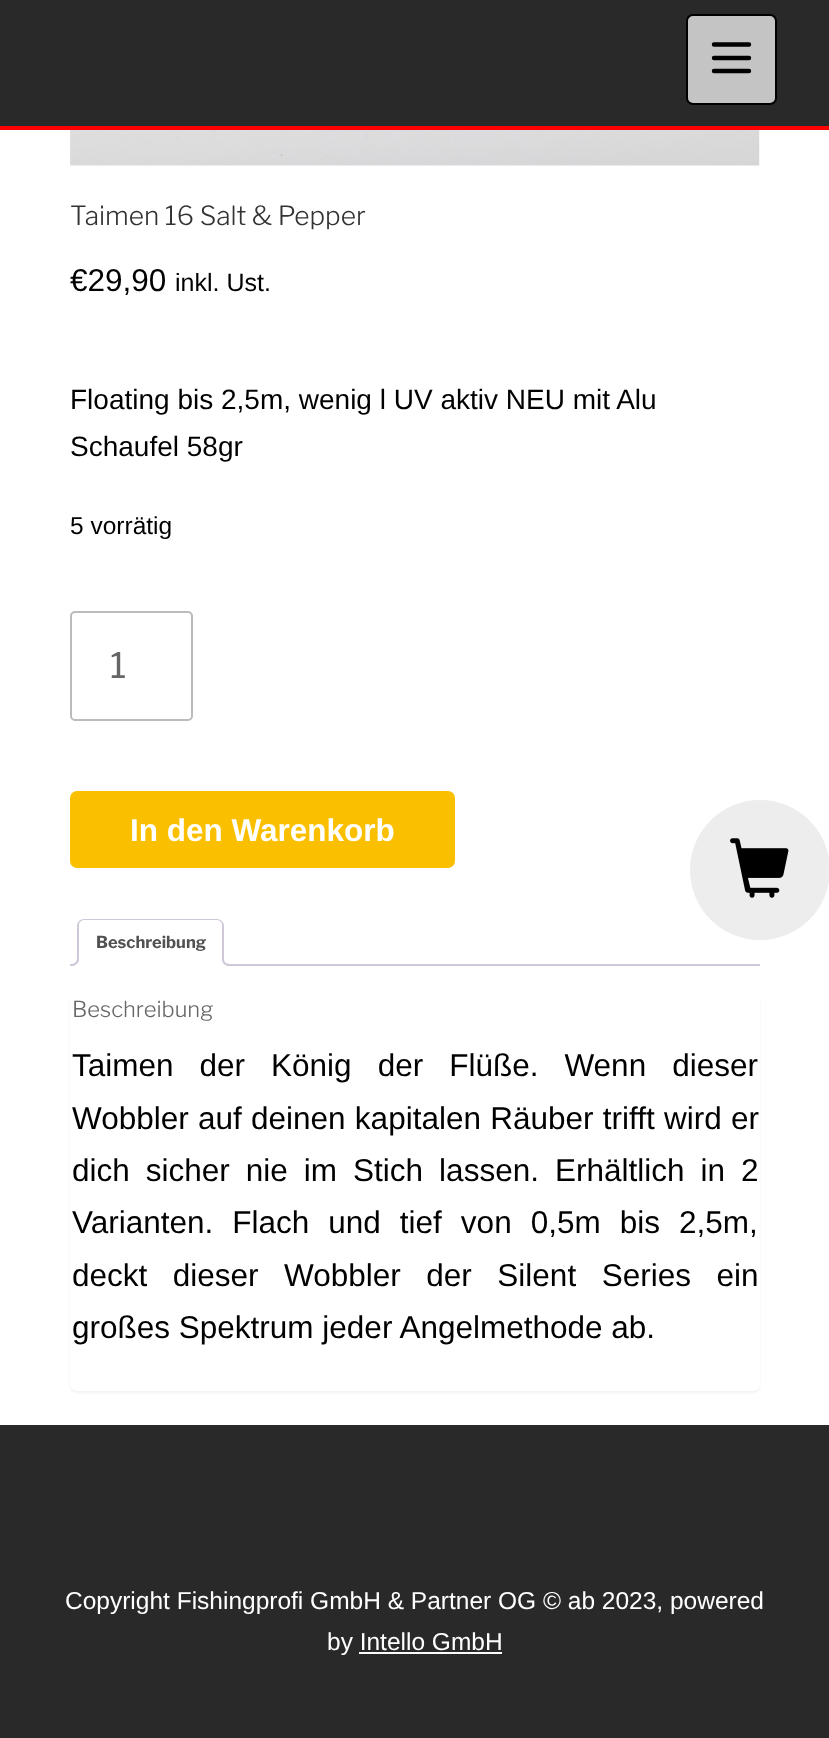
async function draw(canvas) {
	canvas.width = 829;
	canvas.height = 1738;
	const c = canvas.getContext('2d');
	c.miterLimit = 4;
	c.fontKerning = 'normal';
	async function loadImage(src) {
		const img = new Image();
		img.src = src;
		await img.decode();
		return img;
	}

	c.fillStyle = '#fff';
	c.fillRect(0, 0, 829, 1738);
	c.fillStyle = '#292929';
	c.fillRect(0, 0, 829, 126);
	c.fillStyle = '#f00';
	c.fillRect(0, 126, 829, 4);
	c.fillStyle = '#c4c4c4';
	c.beginPath();
	c.roundRect(687, 15, 89, 89, 6);
	c.fill();
	c.strokeStyle = '#000';
	c.lineWidth = 2;
	c.stroke();
	c.beginPath();
	c.moveTo(714, 44.5);
	c.lineTo(749, 44.5);
	c.moveTo(714, 58);
	c.lineTo(749, 58);
	c.moveTo(714, 71);
	c.lineTo(749, 71);
	c.lineWidth = 4.4;
	c.lineCap = 'round';
	c.lineJoin = 'round';
	c.stroke();
	c.drawImage(await loadImage('img1.png'), 70, 130, 690, 36);
	c.font = '300 26.25px Libre Franklin';
	c.fillStyle = '#333';
	c.fillText('Taimen 16 Salt & Pepper', 70, 225);
	c.font = '31.5px Liberation Sans';
	c.fillStyle = '#000';
	c.fillText('€29,90', 70, 291);
	c.font = '25px Liberation Sans';
	c.fillText('inkl. Ust.', 175, 291);
	c.font = '28px Liberation Sans';
	c.fillText('Floating bis 2,5m, wenig l UV aktiv NEU mit Alu', 70, 409);
	c.fillText('Schaufel 58gr', 70, 456);
	c.font = '24.5px Liberation Sans';
	c.fillText('5 vorrätig', 70, 534);
	c.beginPath();
	c.roundRect(71, 612, 121, 108, 4);
	c.strokeStyle = '#bbb';
	c.lineWidth = 2;
	c.lineJoin = 'miter';
	c.stroke();
	c.font = '35px Libre Franklin';
	c.fillStyle = '#666';
	c.fillText('1', 110, 678);
	c.fillStyle = '#fac000';
	c.beginPath();
	c.roundRect(71, 792, 383, 75, 6);
	c.fill();
	c.strokeStyle = '#fac000';
	c.stroke();
	c.font = 'bold 31.5px Liberation Sans';
	c.fillStyle = '#fff';
	c.fillText('In den Warenkorb', 130, 841);
	c.fillStyle = '#cfc8d8';
	c.fillRect(70, 964, 690, 2);
	c.fillStyle = '#fff';
	c.beginPath();
	c.roundRect(77, 919, 147, 47, [7, 7, 0, 0]);
	c.fill();
	c.fillStyle = '#cfc8d8';
	c.beginPath();
	c.moveTo(84, 919);
	c.bezierCurveTo(82, 919, 80, 920, 79, 921);
	c.lineTo(80, 922);
	c.bezierCurveTo(81, 921, 82, 920, 84, 920);
	c.lineTo(217, 920);
	c.bezierCurveTo(219, 920, 220, 921, 221, 922);
	c.lineTo(222, 921);
	c.bezierCurveTo(221, 920, 219, 919, 217, 919);
	c.closePath();
	c.fill();
	c.beginPath();
	c.moveTo(222, 921);
	c.bezierCurveTo(223, 922, 224, 924, 224, 926);
	c.lineTo(224, 966);
	c.lineTo(222, 964);
	c.lineTo(222, 926);
	c.bezierCurveTo(222, 925, 222, 923, 221, 922);
	c.closePath();
	c.fill();
	c.fillStyle = '#fff';
	c.beginPath();
	c.moveTo(224, 966);
	c.lineTo(222, 964);
	c.lineTo(79, 964);
	c.lineTo(77, 966);
	c.closePath();
	c.fill();
	c.fillStyle = '#cfc8d8';
	c.beginPath();
	c.moveTo(77, 966);
	c.lineTo(79, 964);
	c.lineTo(79, 926);
	c.bezierCurveTo(79, 925, 79, 923, 80, 922);
	c.lineTo(79, 921);
	c.bezierCurveTo(78, 922, 77, 924, 77, 926);
	c.closePath();
	c.fill();
	c.font = 'bold 16.5px Libre Franklin';
	c.fillStyle = '#515151';
	c.fillText('Beschreibung', 96, 948);
	c.save();
	c.beginPath();
	c.rect(70, 919, 690, 47);
	c.clip();
	c.fillStyle = '#fff';
	c.beginPath();
	c.moveTo(74, 965.5);
	c.lineTo(74, 970);
	c.bezierCurveTo(80, 970, 82, 966.5, 82, 961);
	c.lineTo(78.5, 961);
	c.bezierCurveTo(78, 963, 76, 965, 74, 965.5);
	c.closePath();
	c.fill();
	c.restore();
	c.fillStyle = '#cfc8d8';
	c.beginPath();
	c.moveTo(70, 957);
	c.lineTo(79, 957);
	c.bezierCurveTo(79, 963.5, 76, 966, 70, 966);
	c.closePath();
	c.moveTo(70, 957);
	c.lineTo(77, 957);
	c.bezierCurveTo(77, 962.5, 75, 964, 70, 964);
	c.closePath();
	c.fill('evenodd');
	c.save();
	c.beginPath();
	c.rect(70, 919, 690, 47);
	c.clip();
	c.fillStyle = '#fff';
	c.beginPath();
	c.moveTo(219, 961);
	c.bezierCurveTo(219, 967.5, 221.5, 970, 228, 970);
	c.lineTo(228, 966);
	c.bezierCurveTo(225.5, 965.5, 223.5, 963.5, 222.5, 961);
	c.closePath();
	c.fill();
	c.restore();
	c.beginPath();
	c.moveTo(222, 957);
	c.lineTo(231, 957);
	c.lineTo(231, 966);
	c.bezierCurveTo(226.5, 966, 222, 964.5, 222, 959);
	c.closePath();
	c.moveTo(224, 957);
	c.lineTo(231, 957);
	c.lineTo(231, 964);
	c.bezierCurveTo(227.5, 964, 224, 963.5, 224, 959);
	c.closePath();
	c.fill('evenodd');
	c.fillStyle = '#0000000d';
	c.filter = 'blur(1px)';
	c.beginPath();
	c.roundRect(70, 994, 690, 399, 7);
	c.fill();
	c.filter = 'none';
	c.fillStyle = '#fff';
	c.beginPath();
	c.roundRect(70, 992, 690, 399, 7);
	c.fill();
	c.font = '300 22px Libre Franklin';
	c.fillStyle = '#666';
	c.fillText('Beschreibung', 72, 1017);
	c.wordSpacing = '17.25px';
	c.font = '31.5px Liberation Sans';
	c.fillStyle = '#000';
	c.fillText('Taimen der König der Flüße. Wenn dieser', 72, 1076);
	c.wordSpacing = '0.5px';
	c.fillText('Wobbler auf deinen kapitalen Räuber trifft wird er', 72, 1129);
	c.wordSpacing = '7.25px';
	c.fillText('dich sicher nie im Stich lassen. Erhältlich in 2', 72, 1181);
	c.wordSpacing = '10.25px';
	c.fillText('Varianten. Flach und tief von 0,5m bis 2,5m,', 72, 1233);
	c.wordSpacing = '16.75px';
	c.fillText('deckt dieser Wobbler der Silent Series ein', 72, 1286);
	c.wordSpacing = '0px';
	c.fillText('großes Spektrum jeder Angelmethode ab.', 72, 1338);
	c.fillStyle = '#ededed';
	c.beginPath();
	c.arc(760, 870, 70, 0, 2 * Math.PI);
	c.fill();
	c.drawImage(await loadImage('img2.png'), 730, 838, 59, 60);
	c.fillStyle = '#292929';
	c.fillRect(0, 1425, 829, 313);
	c.font = '24.5px Liberation Sans';
	c.fillStyle = '#fff';
	c.fillText('Copyright Fishingprofi GmbH & Partner OG © ab 2023, powered', 65, 1609);
	c.fillText('by Intello GmbH', 327, 1650);
	c.fillRect(359, 1652, 143, 2);
}

draw(document.querySelector('canvas'));
